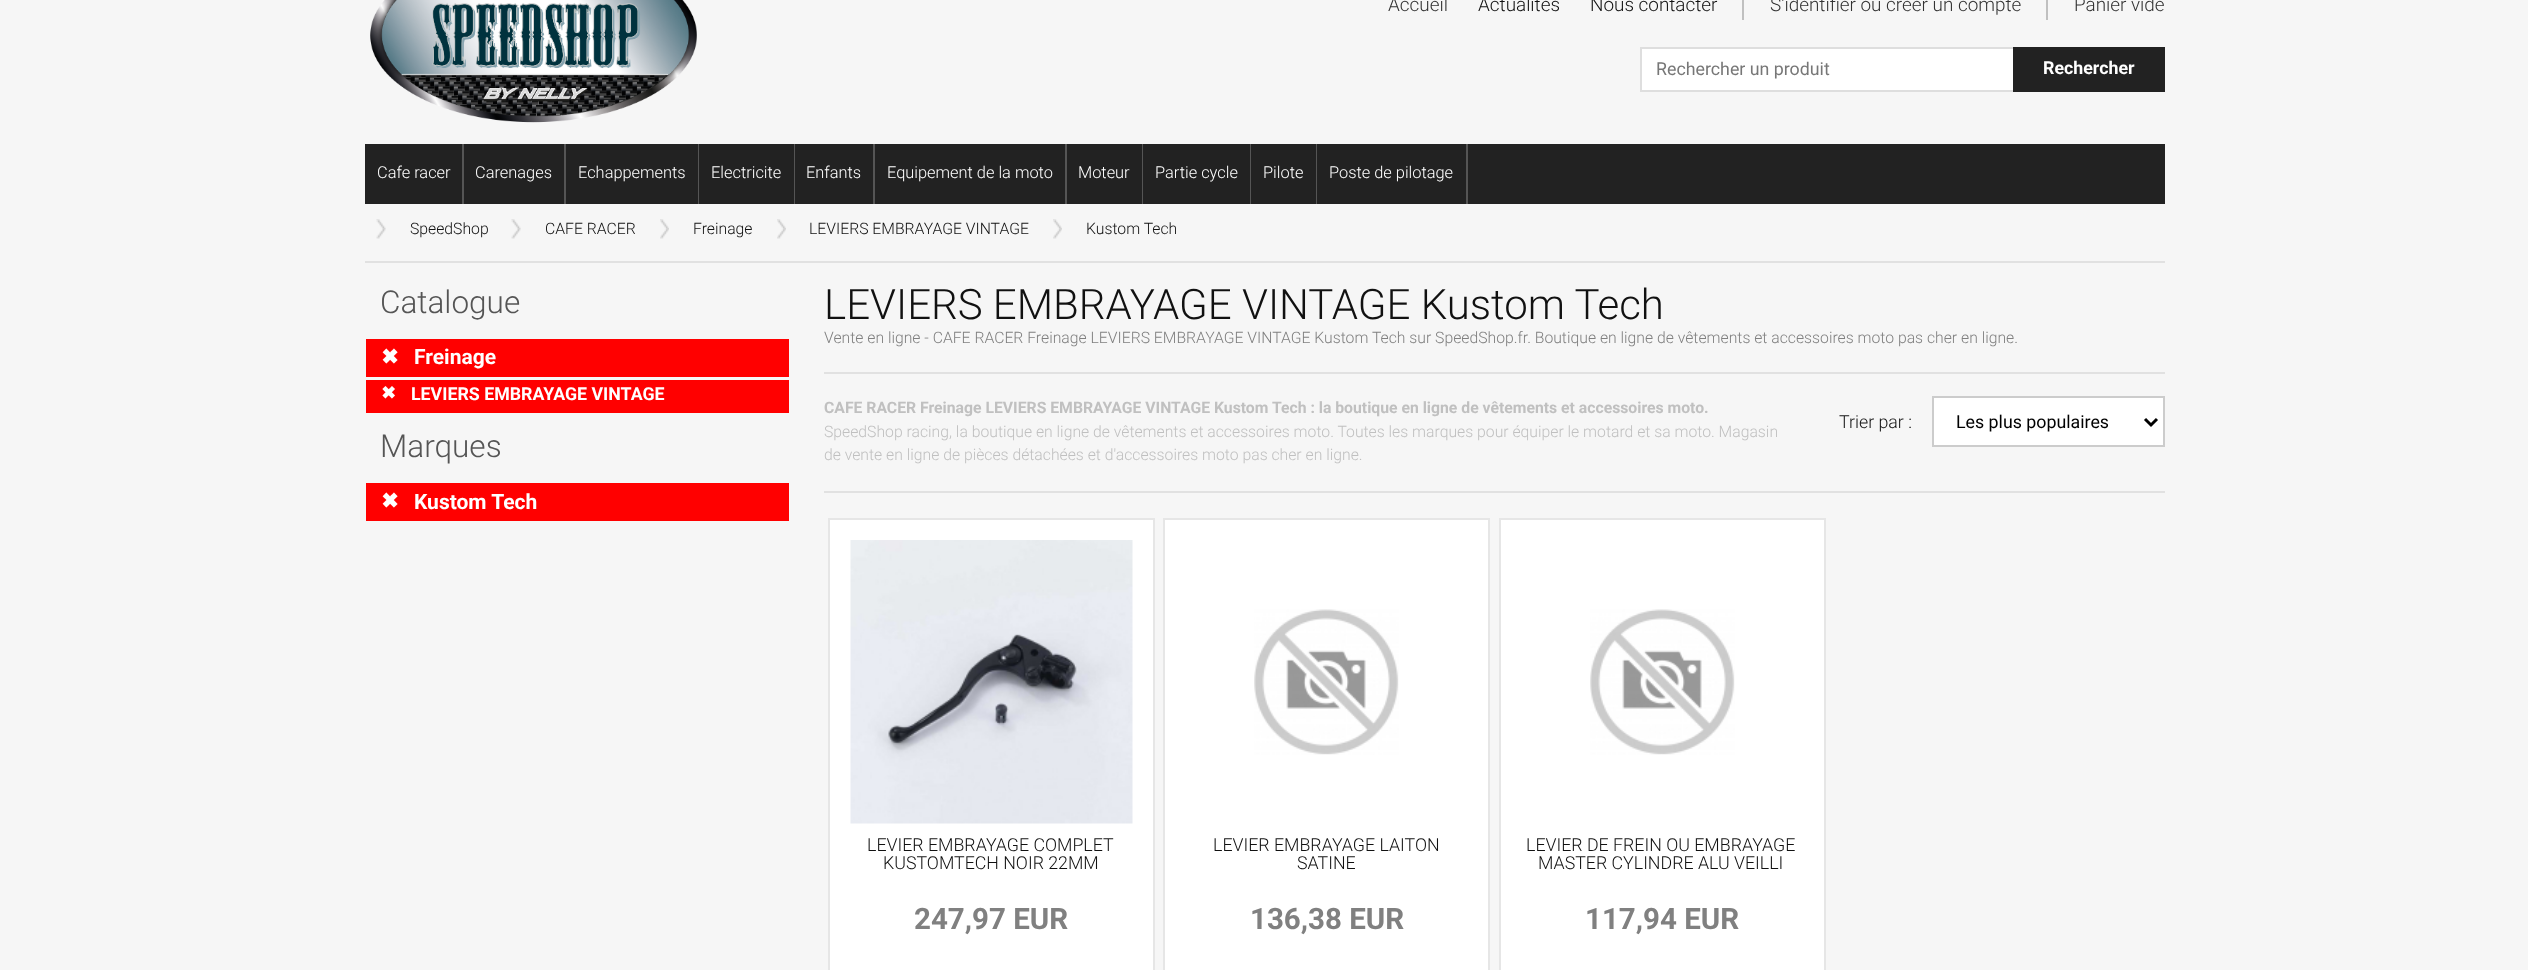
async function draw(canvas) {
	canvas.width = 2528;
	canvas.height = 970;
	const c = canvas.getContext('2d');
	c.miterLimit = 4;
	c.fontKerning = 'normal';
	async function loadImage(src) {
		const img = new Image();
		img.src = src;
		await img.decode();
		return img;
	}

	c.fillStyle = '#f6f6f6';
	c.fillRect(0, 0, 2528, 970);
	c.drawImage(await loadImage('img1.png'), 370, 0, 327, 123);
	c.font = '300 18.9px Roboto';
	c.fillStyle = '#333';
	c.fillText('Accueil', 1388, 11);
	c.fillStyle = '#111';
	c.fillText('Actualités', 1478, 11);
	c.fillStyle = '#c0c0c0';
	c.fillRect(1742, 0, 2, 20);
	c.fillStyle = '#111';
	c.fillText('Nous contacter', 1590, 11);
	c.fillStyle = '#c0c0c0';
	c.fillRect(2046, 0, 2, 20);
	c.fillStyle = '#333';
	c.fillText('S\'identifier ou créer un compte', 1770, 11);
	c.fillText('Panier vide', 2074, 11);
	c.fillStyle = '#fff';
	c.fillRect(1642, 49, 371, 41);
	c.strokeStyle = '#dedede';
	c.lineWidth = 2;
	c.strokeRect(1641, 48, 523, 43);
	c.font = '17.8px Roboto';
	c.fillStyle = '#777';
	c.fillText('Rechercher un produit', 1656, 75);
	c.fillStyle = '#222';
	c.fillRect(2013, 47, 152, 45);
	c.font = 'bold 17.8px Roboto';
	c.fillStyle = '#fff';
	c.fillText('Rechercher', 2043, 74);
	c.fillStyle = '#222';
	c.fillRect(365, 144, 1800, 60);
	c.fillStyle = '#555';
	c.fillRect(462, 144, 2, 60);
	c.font = '300 16.4px Roboto';
	c.fillStyle = '#fff';
	c.fillText('Cafe racer', 377, 178);
	c.fillStyle = '#555';
	c.fillRect(564, 144, 2, 60);
	c.fillStyle = '#fff';
	c.fillText('Carenages', 475, 178);
	c.fillStyle = '#555';
	c.fillRect(698, 144, 1, 60);
	c.fillStyle = '#fff';
	c.fillText('Echappements', 578, 178);
	c.fillStyle = '#555';
	c.fillRect(794, 144, 1, 60);
	c.fillStyle = '#fff';
	c.fillText('Electricite', 711, 178);
	c.fillStyle = '#555';
	c.fillRect(873, 144, 2, 60);
	c.fillStyle = '#fff';
	c.fillText('Enfants', 806, 178);
	c.fillStyle = '#555';
	c.fillRect(1065, 144, 2, 60);
	c.fillStyle = '#fff';
	c.fillText('Equipement de la moto', 887, 178);
	c.fillStyle = '#555';
	c.fillRect(1142, 144, 1, 60);
	c.fillStyle = '#fff';
	c.fillText('Moteur', 1078, 178);
	c.fillStyle = '#555';
	c.fillRect(1250, 144, 1, 60);
	c.fillStyle = '#fff';
	c.fillText('Partie cycle', 1155, 178);
	c.fillStyle = '#555';
	c.fillRect(1316, 144, 1, 60);
	c.fillStyle = '#fff';
	c.fillText('Pilote', 1263, 178);
	c.fillStyle = '#555';
	c.fillRect(1466, 144, 2, 60);
	c.fillStyle = '#fff';
	c.fillText('Poste de pilotage', 1329, 178);
	c.drawImage(await loadImage('img2.png'), 376, 219, 10, 20);
	c.font = '300 15.75px Roboto';
	c.fillStyle = '#111';
	c.fillText('SpeedShop', 410, 234);
	c.drawImage(await loadImage('img2.png'), 511, 219, 10, 20);
	c.fillText('CAFE RACER', 545, 234);
	c.drawImage(await loadImage('img3.png'), 660, 219, 9, 20);
	c.fillText('Freinage', 693, 234);
	c.drawImage(await loadImage('img3.png'), 777, 219, 9, 20);
	c.fillText('LEVIERS EMBRAYAGE VINTAGE', 809, 234);
	c.drawImage(await loadImage('img4.png'), 1053, 219, 9, 20);
	c.fillText('Kustom Tech', 1086, 234);
	c.fillStyle = '#e1e1e1';
	c.fillRect(365, 261, 1800, 2);
	c.font = '300 31.5px Roboto';
	c.fillStyle = '#555';
	c.fillText('Catalogue', 380, 313);
	c.fillStyle = '#f00';
	c.fillRect(366, 339, 423, 38);
	c.font = 'bold 21px DejaVu Sans';
	c.fillStyle = '#fff';
	c.save();
	c.translate(381, 364);
	c.rotate(0.1 * Math.PI / 180);
	c.fillText('✖', 0, 0);
	c.restore();
	c.font = 'bold 21px Roboto';
	c.fillText('Freinage', 414, 364);
	c.fillStyle = '#f00';
	c.fillRect(366, 380, 423, 33);
	c.font = 'bold 17.8px DejaVu Sans';
	c.fillStyle = '#fff';
	c.save();
	c.translate(381, 399);
	c.rotate(0.1 * Math.PI / 180);
	c.fillText('✖', 0, 0);
	c.restore();
	c.font = 'bold 17.8px Roboto';
	c.fillText('LEVIERS EMBRAYAGE VINTAGE', 411, 400);
	c.font = '300 31.5px Roboto';
	c.fillStyle = '#555';
	c.fillText('Marques', 380, 457);
	c.fillStyle = '#f00';
	c.fillRect(366, 483, 423, 38);
	c.font = 'bold 21px DejaVu Sans';
	c.fillStyle = '#fff';
	c.save();
	c.translate(381, 508);
	c.rotate(0.1 * Math.PI / 180);
	c.fillText('✖', 0, 0);
	c.restore();
	c.font = 'bold 21px Roboto';
	c.fillText('Kustom Tech', 414, 509);
	c.font = '300 42px Roboto';
	c.fillStyle = '#111';
	c.fillText('LEVIERS EMBRAYAGE VINTAGE Kustom Tech', 824, 319);
	c.font = '300 15.75px Roboto';
	c.fillStyle = '#808080';
	c.fillText('Vente en ligne - CAFE RACER Freinage LEVIERS EMBRAYAGE VINTAGE Kustom Tech sur SpeedShop.fr. Boutique en ligne de vêtements et accessoires moto pas cher en ligne.', 824, 343);
	c.fillStyle = '#e1e1e1';
	c.fillRect(824, 372, 1341, 2);
	c.font = 'bold 15.75px Roboto';
	c.fillStyle = '#c0c0c0';
	c.fillText('CAFE RACER Freinage LEVIERS EMBRAYAGE VINTAGE Kustom Tech : la boutique en ligne de vêtements et accessoires moto.', 824, 413);
	c.font = '300 15.75px Roboto';
	c.fillText('SpeedShop racing, la boutique en ligne de vêtements et accessoires moto. Toutes les marques pour équiper le motard et sa moto. Magasin', 824, 437);
	c.fillText('de vente en ligne de pièces détachées et d\'accessoires moto pas cher en ligne.', 824, 460);
	c.font = '300 17.8px Roboto';
	c.fillStyle = '#111';
	c.fillText('Trier par :', 1839, 428);
	c.fillStyle = '#fff';
	c.beginPath();
	c.rect(1933, 397, 231, 49);
	c.fill();
	c.strokeStyle = '#ccc';
	c.stroke();
	c.beginPath();
	c.moveTo(2145, 419);
	c.lineTo(2151, 425);
	c.lineTo(2157, 419);
	c.strokeStyle = '#000';
	c.lineWidth = 3;
	c.stroke();
	c.font = '17.8px Roboto';
	c.fillStyle = '#000';
	c.fillText('Les plus populaires', 1956, 428);
	c.fillStyle = '#e1e1e1';
	c.fillRect(824, 491, 1341, 2);
	c.fillStyle = '#fff';
	c.beginPath();
	c.rect(829, 519, 325, 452);
	c.fill();
	c.strokeStyle = '#e6e6e6';
	c.lineWidth = 2;
	c.stroke();
	c.drawImage(await loadImage('img5.png'), 850, 540, 283, 284);
	c.font = '300 17.8px Roboto';
	c.fillStyle = '#111';
	c.fillText('LEVIER EMBRAYAGE COMPLET', 867, 851);
	c.fillText('KUSTOMTECH NOIR 22MM', 883, 869);
	c.font = 'bold 29.5px Roboto';
	c.fillStyle = '#808080';
	c.fillText('247,97 EUR', 914, 929);
	c.fillStyle = '#fff';
	c.beginPath();
	c.rect(1164, 519, 325, 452);
	c.fill();
	c.stroke();
	c.drawImage(await loadImage('img6.png'), 1254, 609, 145, 146);
	c.font = '300 17.8px Roboto';
	c.fillStyle = '#111';
	c.fillText('LEVIER EMBRAYAGE LAITON', 1213, 851);
	c.fillText('SATINE', 1297, 869);
	c.font = 'bold 29.5px Roboto';
	c.fillStyle = '#808080';
	c.fillText('136,38 EUR', 1250, 929);
	c.fillStyle = '#fff';
	c.beginPath();
	c.rect(1500, 519, 325, 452);
	c.fill();
	c.stroke();
	c.drawImage(await loadImage('img7.png'), 1590, 609, 145, 146);
	c.font = '300 17.8px Roboto';
	c.fillStyle = '#111';
	c.fillText('LEVIER DE FREIN OU EMBRAYAGE', 1526, 851);
	c.fillText('MASTER CYLINDRE ALU VEILLI', 1538, 869);
	c.font = 'bold 29.5px Roboto';
	c.fillStyle = '#808080';
	c.fillText('117,94 EUR', 1585, 929);
}

draw(document.querySelector('canvas'));
